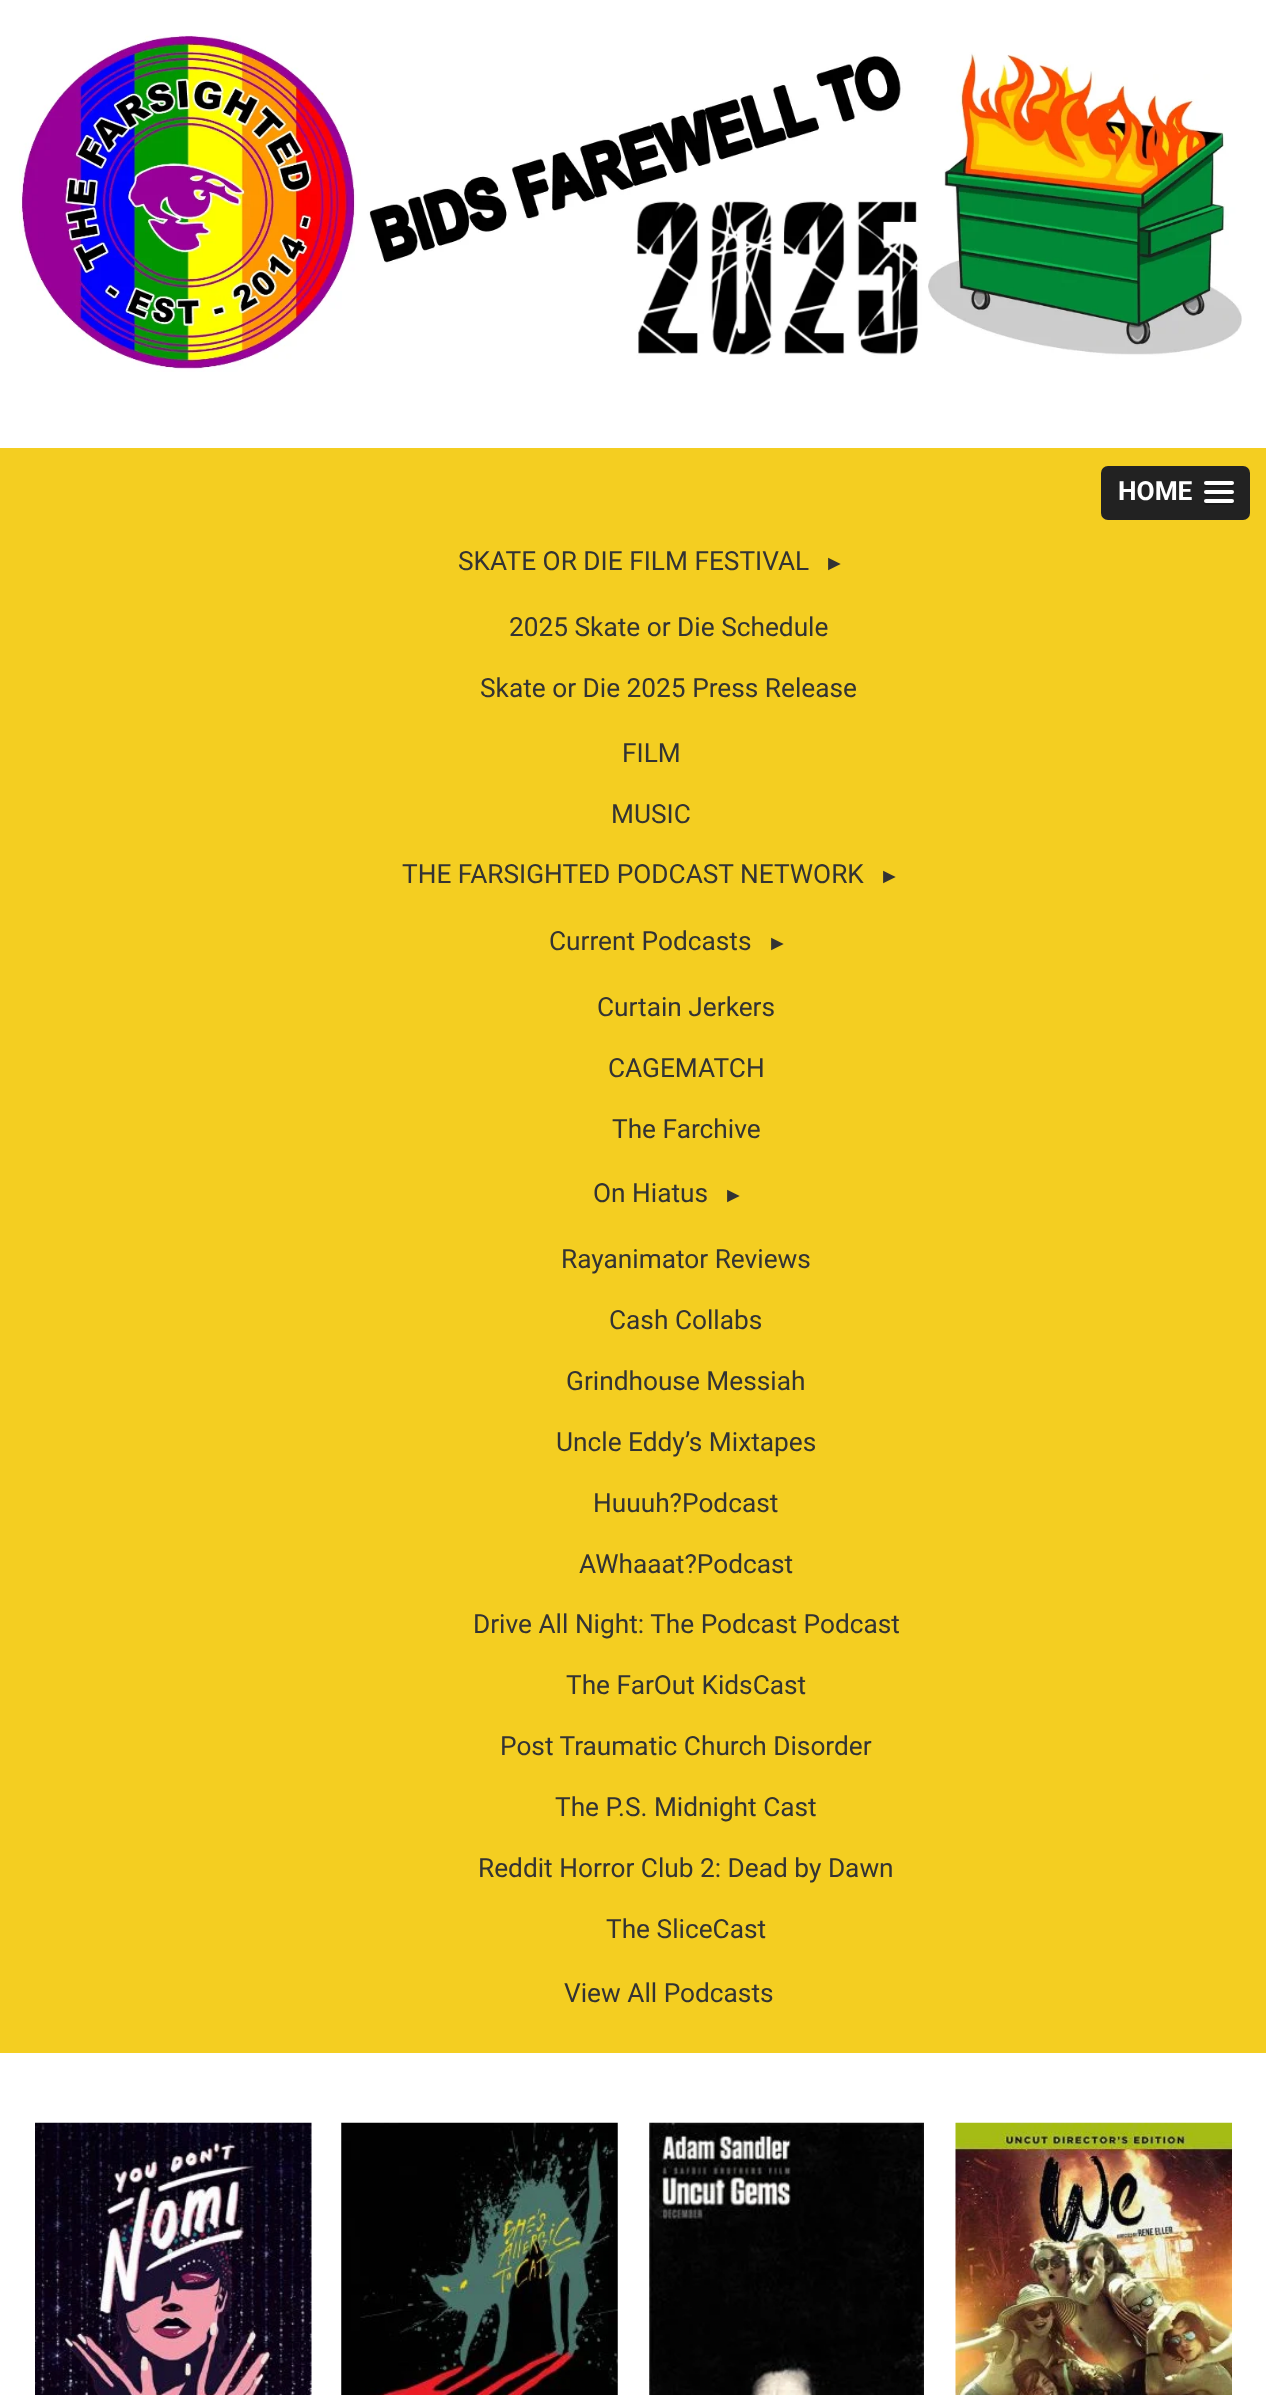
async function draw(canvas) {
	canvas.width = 1266;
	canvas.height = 2395;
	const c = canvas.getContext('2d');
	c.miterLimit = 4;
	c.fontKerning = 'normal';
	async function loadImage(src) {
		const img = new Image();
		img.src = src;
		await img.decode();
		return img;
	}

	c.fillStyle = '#fff';
	c.fillRect(0, 0, 1266, 2395);
	c.drawImage(await loadImage('img1.png'), 19, 35, 1223, 337);
	c.fillStyle = '#f4ce21';
	c.fillRect(0, 448, 1266, 1605);
	c.fillStyle = '#222';
	c.beginPath();
	c.roundRect(1101, 466, 149, 54, 7);
	c.fill();
	c.font = 'bold 26.25px Roboto';
	c.fillStyle = '#fff';
	c.fillText('HOME', 1118, 500);
	c.fillStyle = '#1a1a1a';
	c.beginPath();
	c.moveTo(1204.5, 484);
	c.bezierCurveTo(1202, 488, 1209.5, 487, 1210.5, 487);
	c.lineTo(1227.5, 487);
	c.bezierCurveTo(1229, 487, 1233.5, 488, 1234, 485.5);
	c.lineTo(1233.5, 484);
	c.lineTo(1232.5, 484.5);
	c.lineTo(1205.5, 484.5);
	c.closePath();
	c.fill();
	c.fillStyle = '#fff';
	c.beginPath();
	c.roundRect(1204, 481, 30, 4, 2);
	c.fill();
	c.fillStyle = '#1a1a1a';
	c.beginPath();
	c.moveTo(1204.5, 493);
	c.lineTo(1204, 494.5);
	c.bezierCurveTo(1204.5, 497, 1209, 496, 1210.5, 496);
	c.lineTo(1227.5, 496);
	c.bezierCurveTo(1229, 496, 1233.5, 497, 1234, 494.5);
	c.bezierCurveTo(1234, 494, 1234, 493, 1233.5, 492.5);
	c.lineTo(1232, 493.5);
	c.lineTo(1205.5, 493.5);
	c.closePath();
	c.fill();
	c.fillStyle = '#fff';
	c.beginPath();
	c.roundRect(1204, 490, 30, 4, 2);
	c.fill();
	c.fillStyle = '#1a1a1a';
	c.beginPath();
	c.moveTo(1204.5, 501.5);
	c.bezierCurveTo(1204, 502, 1204, 503, 1204, 503.5);
	c.bezierCurveTo(1204.5, 506, 1209, 505, 1210.5, 505);
	c.lineTo(1232.5, 505);
	c.bezierCurveTo(1234, 504.5, 1234.5, 502.5, 1233.5, 501.5);
	c.lineTo(1232, 502);
	c.lineTo(1205.5, 502);
	c.closePath();
	c.fill();
	c.fillStyle = '#fff';
	c.beginPath();
	c.roundRect(1204, 499, 30, 4, 2);
	c.fill();
	c.font = '26.25px Roboto';
	c.fillStyle = '#333';
	c.fillText('SKATE OR DIE FILM FESTIVAL', 458, 570);
	c.font = '21px Liberation Sans';
	c.fillText('►', 824, 570);
	c.font = '26.25px Roboto';
	for (const [text, x, y] of [
		['2025 Skate or Die Schedule', 509, 636],
		['Skate or Die 2025 Press Release', 480, 697],
		['FILM', 622, 762],
		['MUSIC', 611, 823],
		['THE FARSIGHTED PODCAST NETWORK', 402, 883],
	]) {
		c.fillText(text, x, y);
	}
	c.font = '21px Liberation Sans';
	c.fillText('►', 879, 883);
	c.font = '26.25px Roboto';
	c.fillText('Current Podcasts', 549, 950);
	c.font = '21px Liberation Sans';
	c.fillText('►', 767, 950);
	c.font = '26.25px Roboto';
	for (const [text, x, y] of [
		['Curtain Jerkers', 597, 1016],
		['CAGEMATCH', 608, 1077],
		['The Farchive', 612, 1138],
		['On Hiatus', 593, 1202],
	]) {
		c.fillText(text, x, y);
	}
	c.font = '21px Liberation Sans';
	c.fillText('►', 723, 1202);
	c.font = '26.25px Roboto';
	for (const [text, x, y] of [
		['Rayanimator Reviews', 561, 1268],
		['Cash Collabs', 609, 1329],
		['Grindhouse Messiah', 566, 1390],
		['Uncle Eddy’s Mixtapes', 556, 1451],
		['Huuuh?Podcast', 593, 1512],
		['AWhaaat?Podcast', 579, 1573],
		['Drive All Night: The Podcast Podcast', 473, 1633],
		['The FarOut KidsCast', 566, 1694],
		['Post Traumatic Church Disorder', 500, 1755],
		['The P.S. Midnight Cast', 555, 1816],
		['Reddit Horror Club 2: Dead by Dawn', 478, 1877],
		['The SliceCast', 606, 1938],
		['View All Podcasts', 564, 2002],
	]) {
		c.fillText(text, x, y);
	}
	c.drawImage(await loadImage('img2.png'), 35, 2122, 277, 273);
	c.drawImage(await loadImage('img3.png'), 341, 2122, 277, 273);
	c.drawImage(await loadImage('img4.png'), 649, 2122, 275, 273);
	c.drawImage(await loadImage('img5.png'), 955, 2122, 277, 273);
}

draw(document.querySelector('canvas'));
